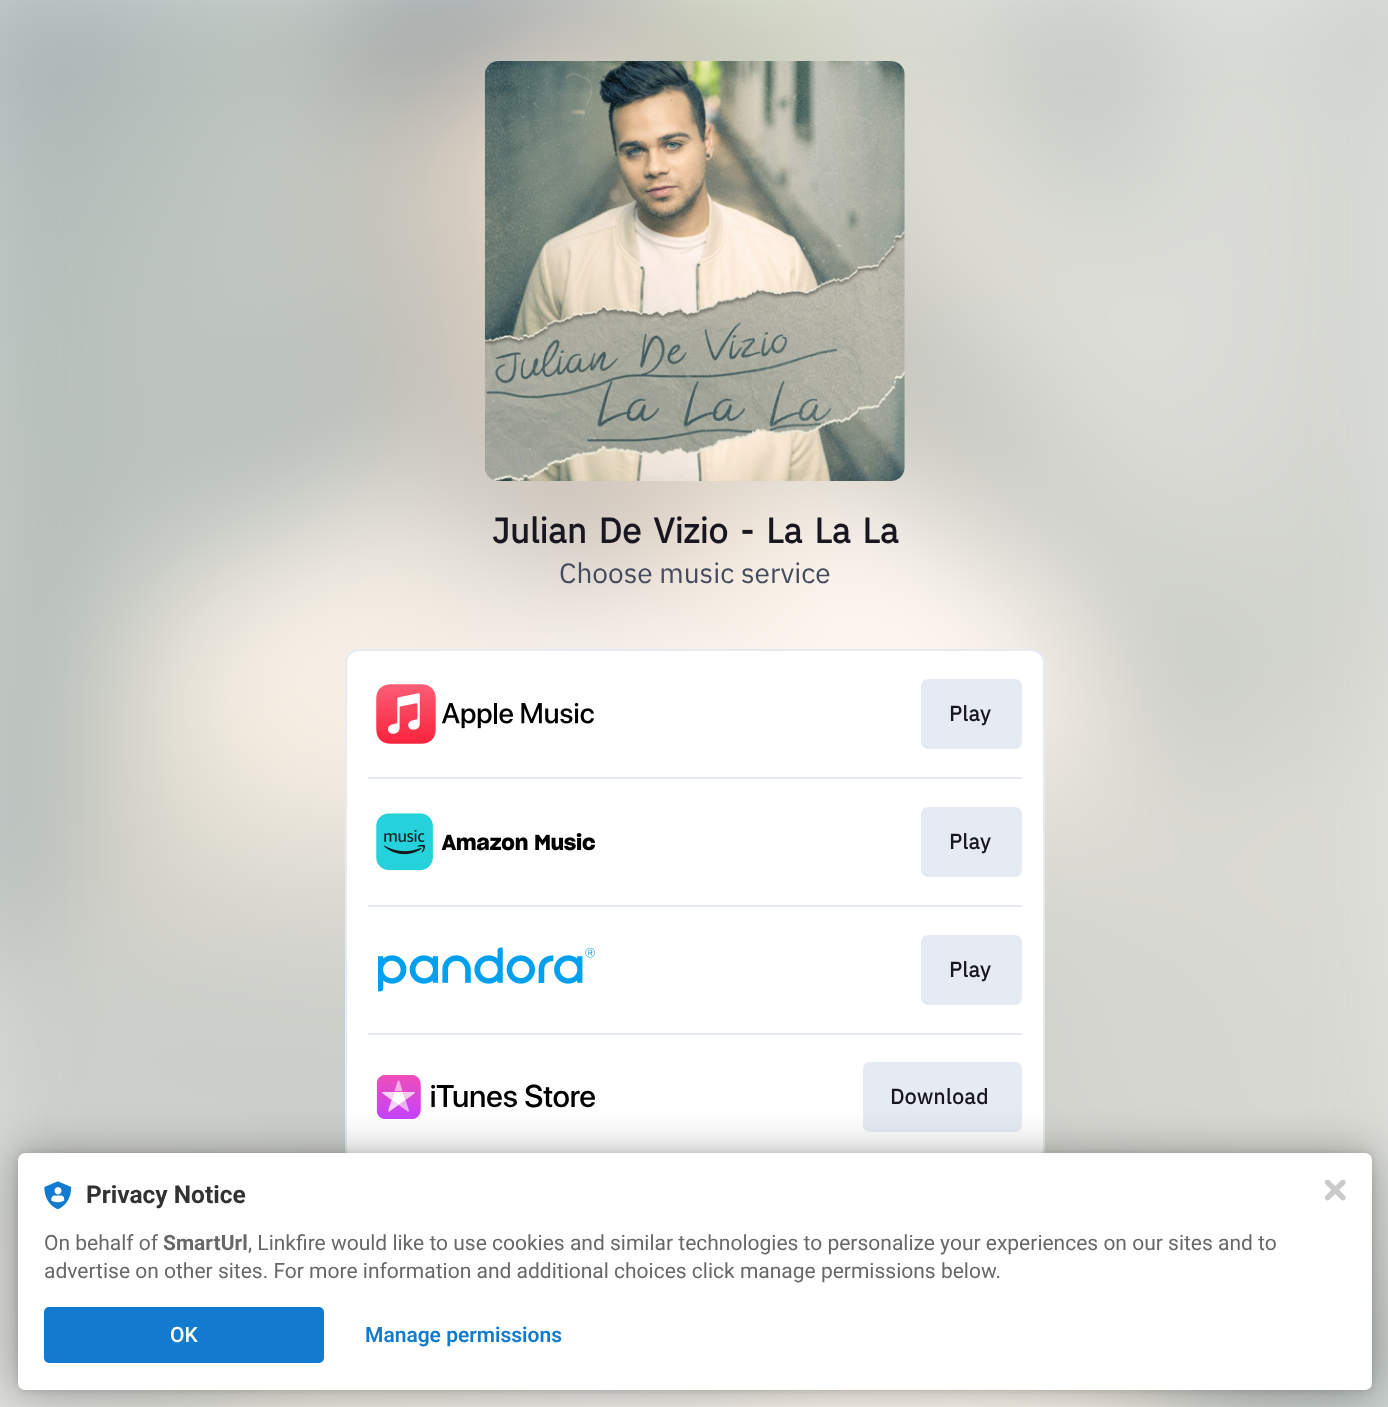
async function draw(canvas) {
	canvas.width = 1388;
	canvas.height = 1407;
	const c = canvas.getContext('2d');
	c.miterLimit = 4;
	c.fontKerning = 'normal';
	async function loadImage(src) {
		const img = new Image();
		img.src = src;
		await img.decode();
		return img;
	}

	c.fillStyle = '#fff';
	c.fillRect(0, 0, 1388, 1407);
	c.drawImage(await loadImage('img1.png'), 0, 0, 1388, 1407);
	c.drawImage(await loadImage('img2.png'), 484, 61, 421, 420);
	c.wordSpacing = '3.75px';
	c.font = 'bold 35px IBM Plex Sans';
	c.fillStyle = '#181721';
	c.fillText('Julian De Vizio - La La La', 492, 543);
	c.wordSpacing = '0px';
	c.font = '28px IBM Plex Sans';
	c.fillStyle = '#454b5f';
	c.fillText('Choose music service', 559, 583);
	c.beginPath();
	c.roundRect(346, 650, 698, 511, 13);
	c.strokeStyle = '#e6eaf2';
	c.lineWidth = 2;
	c.stroke();
	c.fillStyle = '#fff';
	c.beginPath();
	c.roundRect(347, 651, 696, 509, 12);
	c.fill();
	c.drawImage(await loadImage('img3.png'), 376, 684, 218, 60);
	c.fillStyle = '#e6eaf2';
	c.beginPath();
	c.roundRect(921, 679, 101, 70, 7);
	c.fill();
	c.letterSpacing = '0.5px';
	c.font = 'bold 21px IBM Plex Sans';
	c.fillStyle = '#181721';
	c.fillText('Play', 949, 721);
	c.fillStyle = '#e6eaf2';
	c.fillRect(368, 777, 654, 2);
	c.drawImage(await loadImage('img4.png'), 376, 813, 219, 58);
	c.beginPath();
	c.roundRect(921, 807, 101, 70, 7);
	c.fill();
	c.fillStyle = '#181721';
	c.fillText('Play', 949, 849);
	c.fillStyle = '#e6eaf2';
	c.fillRect(368, 905, 654, 2);
	c.drawImage(await loadImage('img5.png'), 378, 947, 217, 45);
	c.beginPath();
	c.roundRect(921, 935, 101, 70, 7);
	c.fill();
	c.fillStyle = '#181721';
	c.fillText('Play', 949, 977);
	c.fillStyle = '#e6eaf2';
	c.fillRect(368, 1033, 654, 2);
	c.drawImage(await loadImage('img6.png'), 376, 1075, 219, 44);
	c.beginPath();
	c.roundRect(863, 1062, 159, 70, 7);
	c.fill();
	c.fillStyle = '#181721';
	c.fillText('Download', 890, 1104);
	c.fillStyle = '#0000001f';
	c.filter = 'blur(3.5px)';
	c.beginPath();
	c.roundRect(18, 1153, 1354, 237, 7);
	c.fill();
	c.filter = 'none';
	c.fillStyle = '#0000004d';
	c.filter = 'blur(21px)';
	c.beginPath();
	c.roundRect(18, 1153, 1354, 237, 7);
	c.fill();
	c.filter = 'none';
	c.fillStyle = '#fff';
	c.beginPath();
	c.roundRect(18, 1153, 1354, 237, 7);
	c.fill();
	c.drawImage(await loadImage('img7.png'), 44, 1181, 28, 28);
	c.letterSpacing = '0px';
	c.font = 'bold 24.5px Roboto';
	c.fillStyle = '#323232';
	c.fillText('Privacy Notice', 86, 1203);
	c.font = '21px Roboto';
	c.fillStyle = '#686868';
	c.fillText('On behalf of', 44, 1250);
	c.font = 'bold 21px Roboto';
	c.fillText('SmartUrl', 163, 1250);
	c.font = '21px Roboto';
	c.fillText(', Linkfire would like to use cookies and similar technologies to personalize your experiences on our sites and to', 248, 1250);
	c.fillText('advertise on other sites. For more information and additional choices click manage permissions below.', 44, 1278);
	c.fillStyle = '#137bcf';
	c.beginPath();
	c.roundRect(44, 1307, 280, 56, 5);
	c.fill();
	c.font = '500 21px Roboto';
	c.fillStyle = '#fff';
	c.fillText('OK', 170, 1342);
	c.font = '600 21px Roboto';
	c.fillStyle = '#137bcf';
	c.fillText('Manage permissions', 365, 1342);
	c.drawImage(await loadImage('img8.png'), 1325, 1180, 21, 21);
}

draw(document.querySelector('canvas'));
